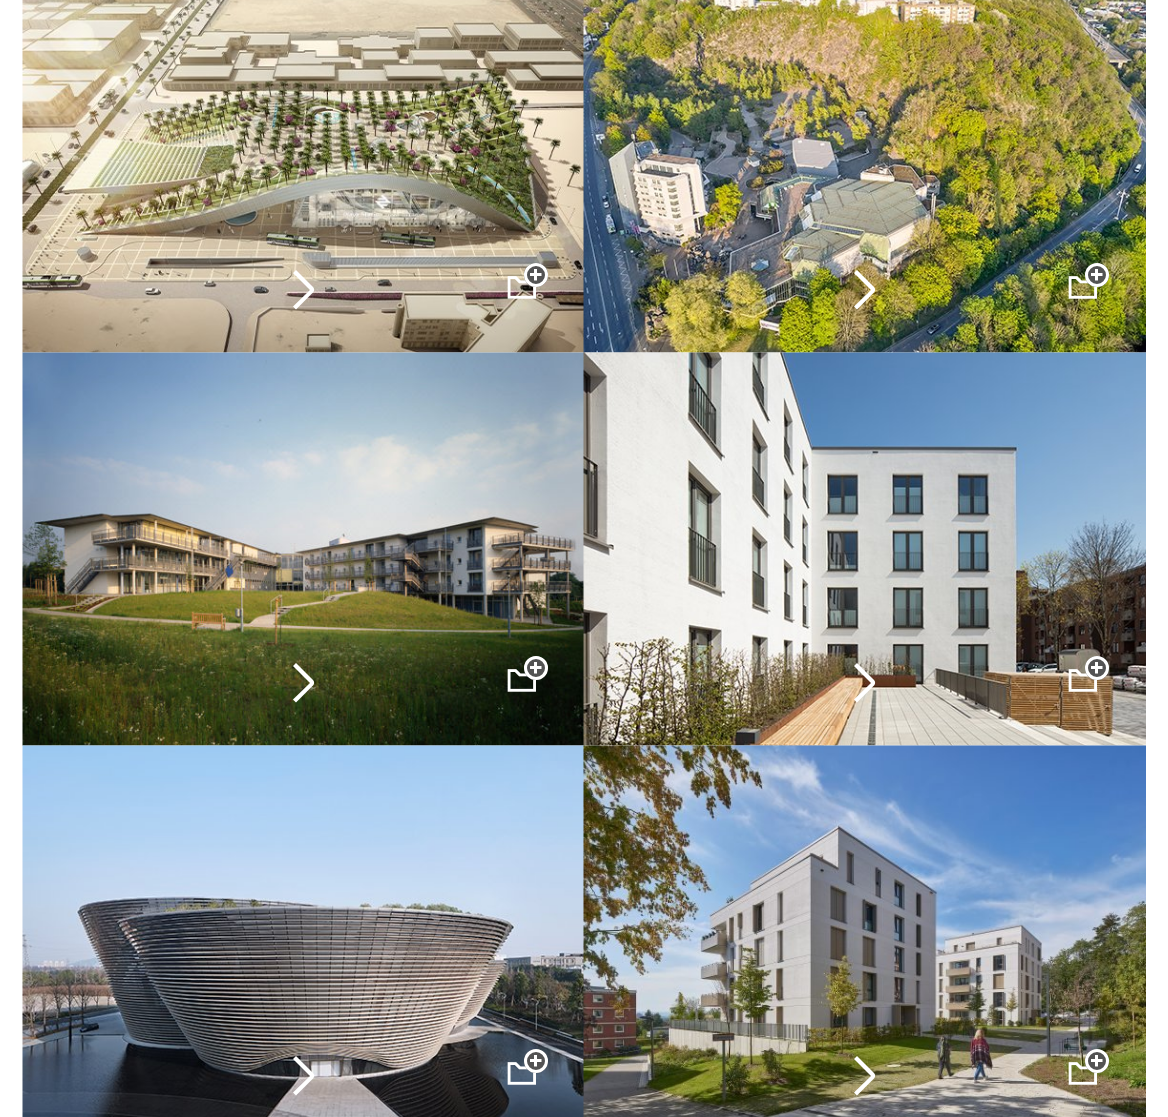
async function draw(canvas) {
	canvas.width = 1168;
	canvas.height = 1117;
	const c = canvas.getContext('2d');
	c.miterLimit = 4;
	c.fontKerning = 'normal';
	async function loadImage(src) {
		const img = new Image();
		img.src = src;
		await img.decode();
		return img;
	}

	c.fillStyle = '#fff';
	c.fillRect(0, 0, 1168, 1117);
	c.drawImage(await loadImage('img1.png'), 22, 0, 563, 353);
	c.beginPath();
	c.moveTo(293, 306.5);
	c.lineTo(310, 290);
	c.lineTo(293, 273);
	c.lineTo(296, 270);
	c.lineTo(313, 287);
	c.bezierCurveTo(314.5, 288.5, 314.5, 291, 313, 292.5);
	c.lineTo(296, 309.5);
	c.closePath();
	c.fill();
	c.drawImage(await loadImage('img2.png'), 507, 276, 29, 23);
	c.fillStyle = '#535353';
	c.beginPath();
	c.arc(536, 275, 12, 0, 2 * Math.PI);
	c.fill();
	c.drawImage(await loadImage('img3.png'), 530, 269, 12, 12);
	c.beginPath();
	c.arc(536, 275, 10.5, 0, 2 * Math.PI);
	c.strokeStyle = '#fff';
	c.lineWidth = 3;
	c.stroke();
	c.drawImage(await loadImage('img4.png'), 583, 0, 563, 353);
	c.fillStyle = '#fff';
	c.beginPath();
	c.moveTo(854, 306.5);
	c.lineTo(871, 290);
	c.lineTo(854, 273);
	c.lineTo(857, 270);
	c.lineTo(874, 287);
	c.bezierCurveTo(875.5, 288.5, 875.5, 291, 874, 292.5);
	c.lineTo(857, 309.5);
	c.closePath();
	c.fill();
	c.drawImage(await loadImage('img5.png'), 1068, 276, 29, 23);
	c.fillStyle = '#535353';
	c.beginPath();
	c.arc(1097, 275, 12, 0, 2 * Math.PI);
	c.fill();
	c.drawImage(await loadImage('img3.png'), 1091, 269, 12, 12);
	c.beginPath();
	c.arc(1097, 275, 10.5, 0, 2 * Math.PI);
	c.stroke();
	c.drawImage(await loadImage('img6.png'), 22, 352, 563, 394);
	c.fillStyle = '#fff';
	c.beginPath();
	c.moveTo(293, 699.5);
	c.lineTo(310, 683);
	c.lineTo(293, 666);
	c.lineTo(296, 663);
	c.lineTo(313, 680);
	c.bezierCurveTo(314.5, 681.5, 314.5, 684, 313, 685.5);
	c.lineTo(296, 702.5);
	c.closePath();
	c.fill();
	c.drawImage(await loadImage('img7.png'), 507, 669, 29, 23);
	c.fillStyle = '#535353';
	c.beginPath();
	c.arc(536, 668, 12, 0, 2 * Math.PI);
	c.fill();
	c.drawImage(await loadImage('img3.png'), 530, 662, 12, 12);
	c.beginPath();
	c.arc(536, 668, 10.5, 0, 2 * Math.PI);
	c.stroke();
	c.drawImage(await loadImage('img8.png'), 583, 352, 563, 394);
	c.fillStyle = '#fff';
	c.beginPath();
	c.moveTo(854, 699.5);
	c.lineTo(871, 683);
	c.lineTo(854, 666);
	c.lineTo(857, 663);
	c.lineTo(874, 680);
	c.bezierCurveTo(875.5, 681.5, 875.5, 684, 874, 685.5);
	c.lineTo(857, 702.5);
	c.closePath();
	c.fill();
	c.drawImage(await loadImage('img9.png'), 1068, 669, 29, 23);
	c.fillStyle = '#535353';
	c.beginPath();
	c.arc(1097, 668, 12, 0, 2 * Math.PI);
	c.fill();
	c.drawImage(await loadImage('img3.png'), 1091, 662, 12, 12);
	c.beginPath();
	c.arc(1097, 668, 10.5, 0, 2 * Math.PI);
	c.stroke();
	c.drawImage(await loadImage('img10.png'), 22, 745, 563, 372);
	c.fillStyle = '#fff';
	c.beginPath();
	c.moveTo(293, 1092.5);
	c.lineTo(310, 1076);
	c.lineTo(293, 1059);
	c.lineTo(296, 1056);
	c.lineTo(313, 1073);
	c.bezierCurveTo(314.5, 1074.5, 314.5, 1077, 313, 1078.5);
	c.lineTo(296, 1095.5);
	c.closePath();
	c.fill();
	c.drawImage(await loadImage('img11.png'), 507, 1062, 29, 23);
	c.fillStyle = '#535353';
	c.beginPath();
	c.arc(536, 1061, 12, 0, 2 * Math.PI);
	c.fill();
	c.drawImage(await loadImage('img3.png'), 530, 1055, 12, 12);
	c.beginPath();
	c.arc(536, 1061, 10.5, 0, 2 * Math.PI);
	c.stroke();
	c.drawImage(await loadImage('img12.png'), 583, 745, 563, 372);
	c.fillStyle = '#fff';
	c.beginPath();
	c.moveTo(854, 1092.5);
	c.lineTo(871, 1076);
	c.lineTo(854, 1059);
	c.lineTo(857, 1056);
	c.lineTo(874, 1073);
	c.bezierCurveTo(875.5, 1074.5, 875.5, 1077, 874, 1078.5);
	c.lineTo(857, 1095.5);
	c.closePath();
	c.fill();
	c.drawImage(await loadImage('img13.png'), 1068, 1062, 29, 23);
	c.fillStyle = '#535353';
	c.beginPath();
	c.arc(1097, 1061, 12, 0, 2 * Math.PI);
	c.fill();
	c.drawImage(await loadImage('img3.png'), 1091, 1055, 12, 12);
	c.beginPath();
	c.arc(1097, 1061, 10.5, 0, 2 * Math.PI);
	c.stroke();
}

draw(document.querySelector('canvas'));
